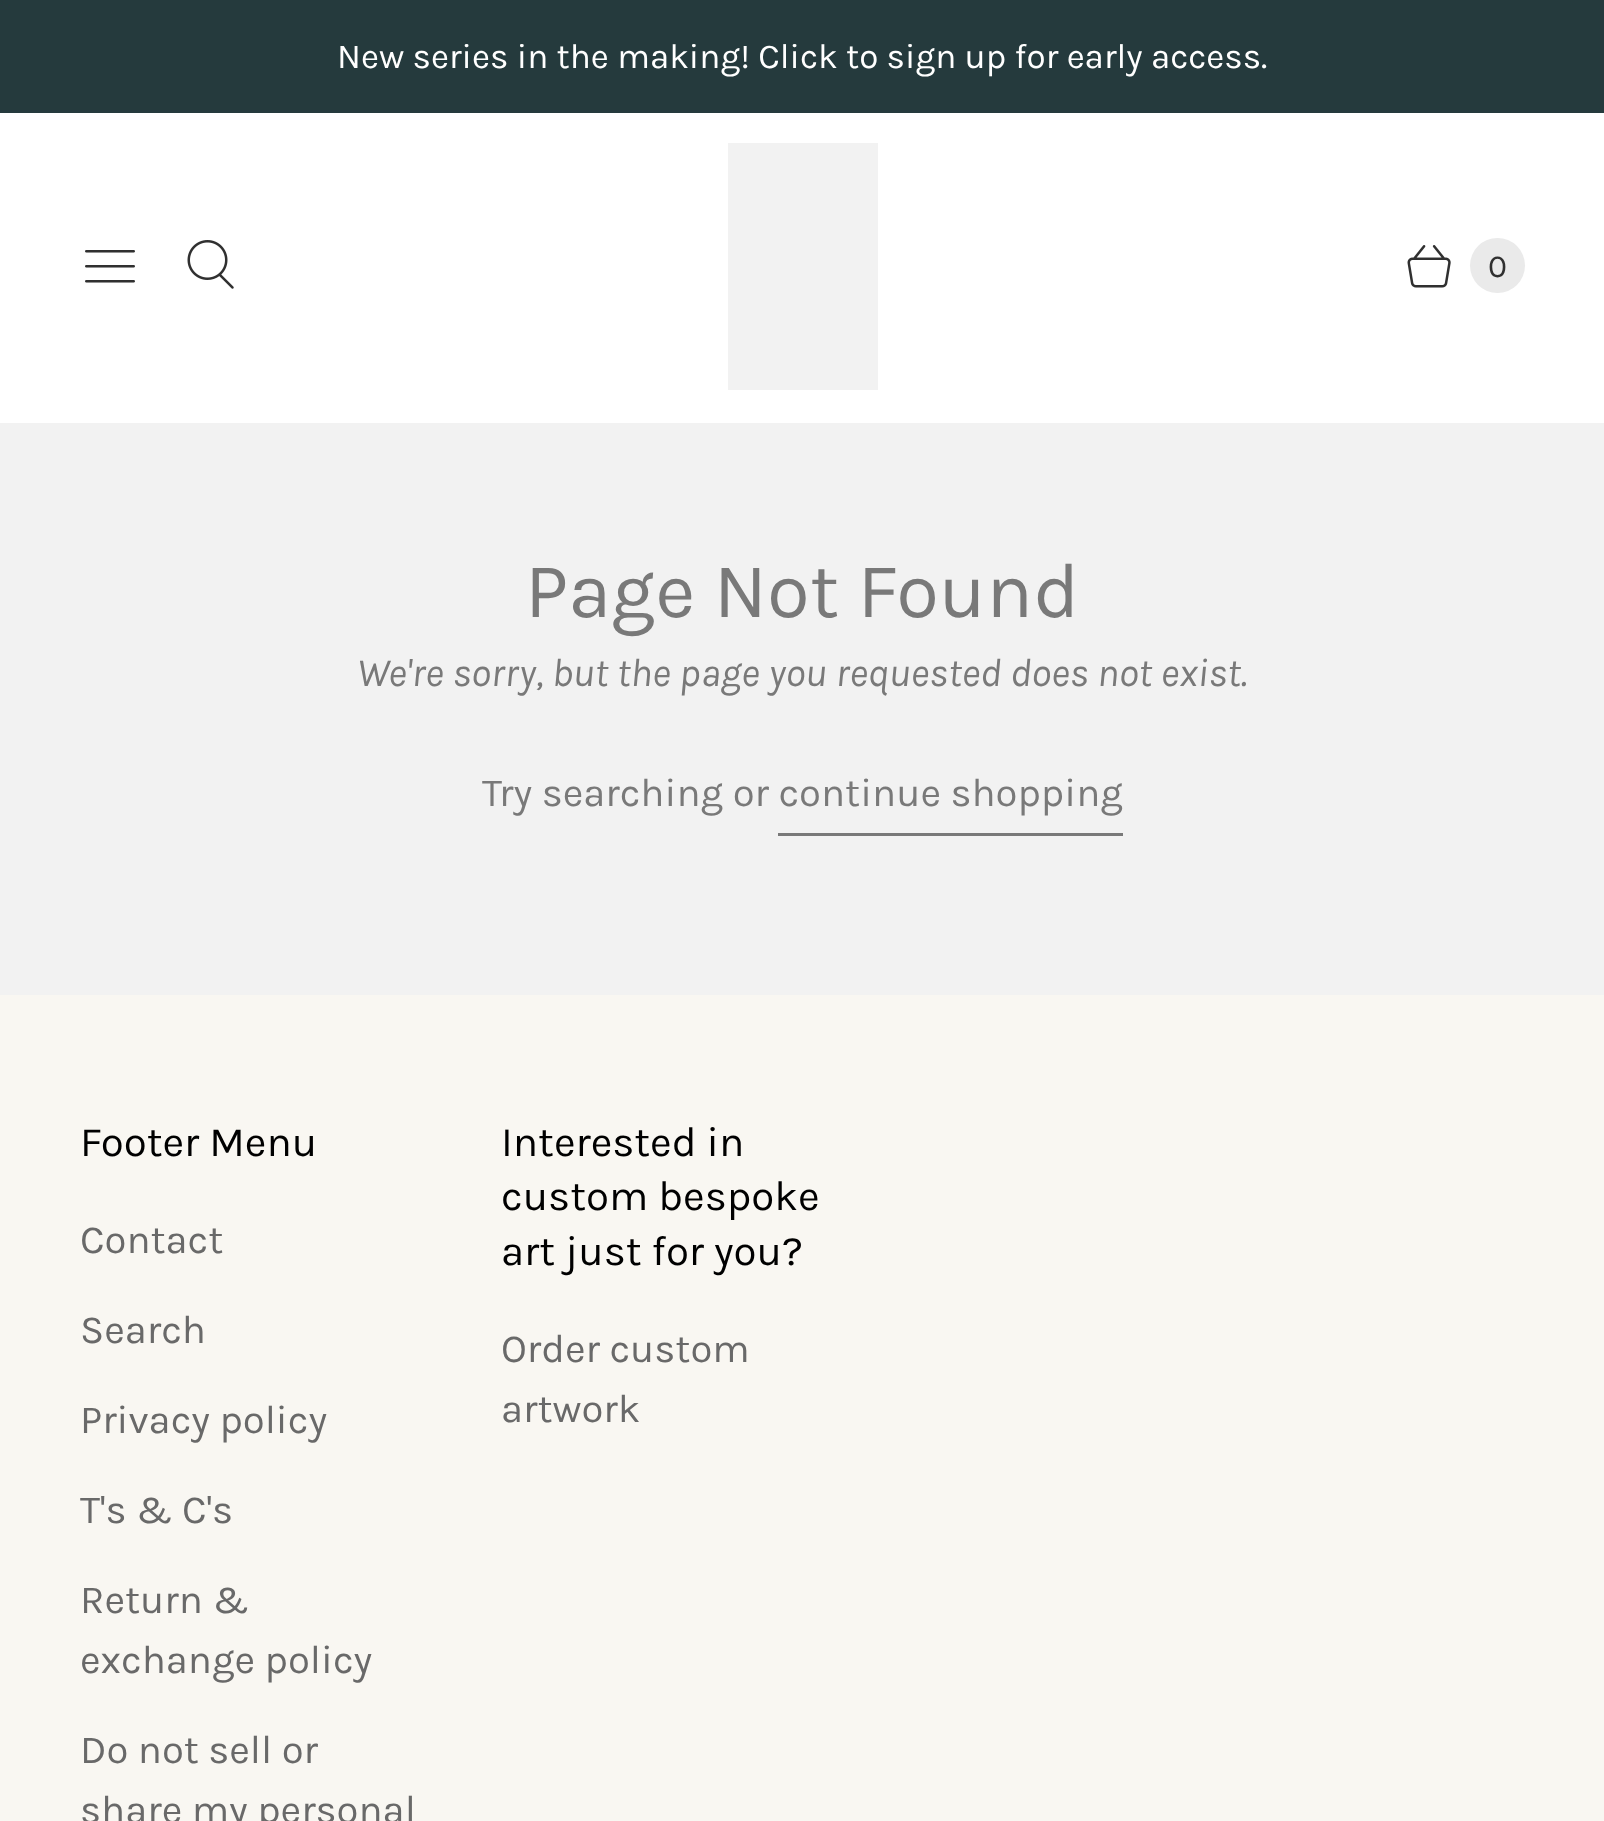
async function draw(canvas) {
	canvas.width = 1604;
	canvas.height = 1821;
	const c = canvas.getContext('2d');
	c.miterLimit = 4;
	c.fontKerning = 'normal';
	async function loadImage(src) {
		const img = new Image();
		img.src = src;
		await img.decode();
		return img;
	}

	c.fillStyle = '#f2f2f2';
	c.fillRect(0, 0, 1604, 1821);
	c.fillStyle = '#253a3d';
	c.fillRect(0, 0, 1604, 113);
	c.font = '35px Karla';
	c.fillStyle = '#fff';
	c.fillText('New series in the making! Click to sign up for early access.', 337, 68);
	c.fillRect(0, 113, 1604, 310);
	c.drawImage(await loadImage('img1.png'), 85, 250, 50, 33);
	c.drawImage(await loadImage('img2.png'), 187, 240, 47, 49);
	c.fillStyle = '#f2f2f2';
	c.fillRect(728, 143, 150, 247);
	c.drawImage(await loadImage('img3.png'), 1407, 245, 44, 43);
	c.fillStyle = '#eaeaea';
	c.beginPath();
	c.arc(1497.5, 265.5, 27.5, 0, 2 * Math.PI);
	c.fill();
	c.font = '32px Karla';
	c.fillStyle = '#303030';
	c.fillText('0', 1488, 277);
	c.font = '78px Karla';
	c.fillStyle = '#797979';
	c.fillText('Page Not Found', 525, 617);
	c.font = 'italic 40px Karla';
	c.fillText('We\'re sorry, but the page you requested does not exist.', 357, 686);
	c.font = '40px Karla';
	c.fillText('Try searching or continue shopping', 482, 806);
	c.fillRect(778, 833, 345, 3);
	c.fillStyle = '#f9f7f2';
	c.fillRect(0, 995, 1604, 826);
	c.font = '42px Karla';
	c.fillStyle = '#000';
	c.fillText('Footer Menu', 80, 1156);
	c.font = '40px Karla';
	c.fillStyle = '#696969';
	for (const [text, x, y] of [
		['Contact', 80, 1253],
		['Search', 80, 1343],
		['Privacy policy', 80, 1433],
		['T\'s & C\'s', 80, 1523],
		['Return &', 80, 1613],
		['exchange policy', 80, 1673],
		['Do not sell or', 80, 1763],
		['share my personal', 80, 1823],
	]) {
		c.fillText(text, x, y);
	}
	c.font = '42px Karla';
	c.fillStyle = '#000';
	for (const [text, x, y] of [
		['Interested in', 501, 1156],
		['custom bespoke', 501, 1210],
		['art just for you?', 501, 1265],
	]) {
		c.fillText(text, x, y);
	}
	c.font = '40px Karla';
	c.fillStyle = '#696969';
	c.fillText('Order custom', 501, 1362);
	c.fillText('artwork', 501, 1422);
}

draw(document.querySelector('canvas'));
